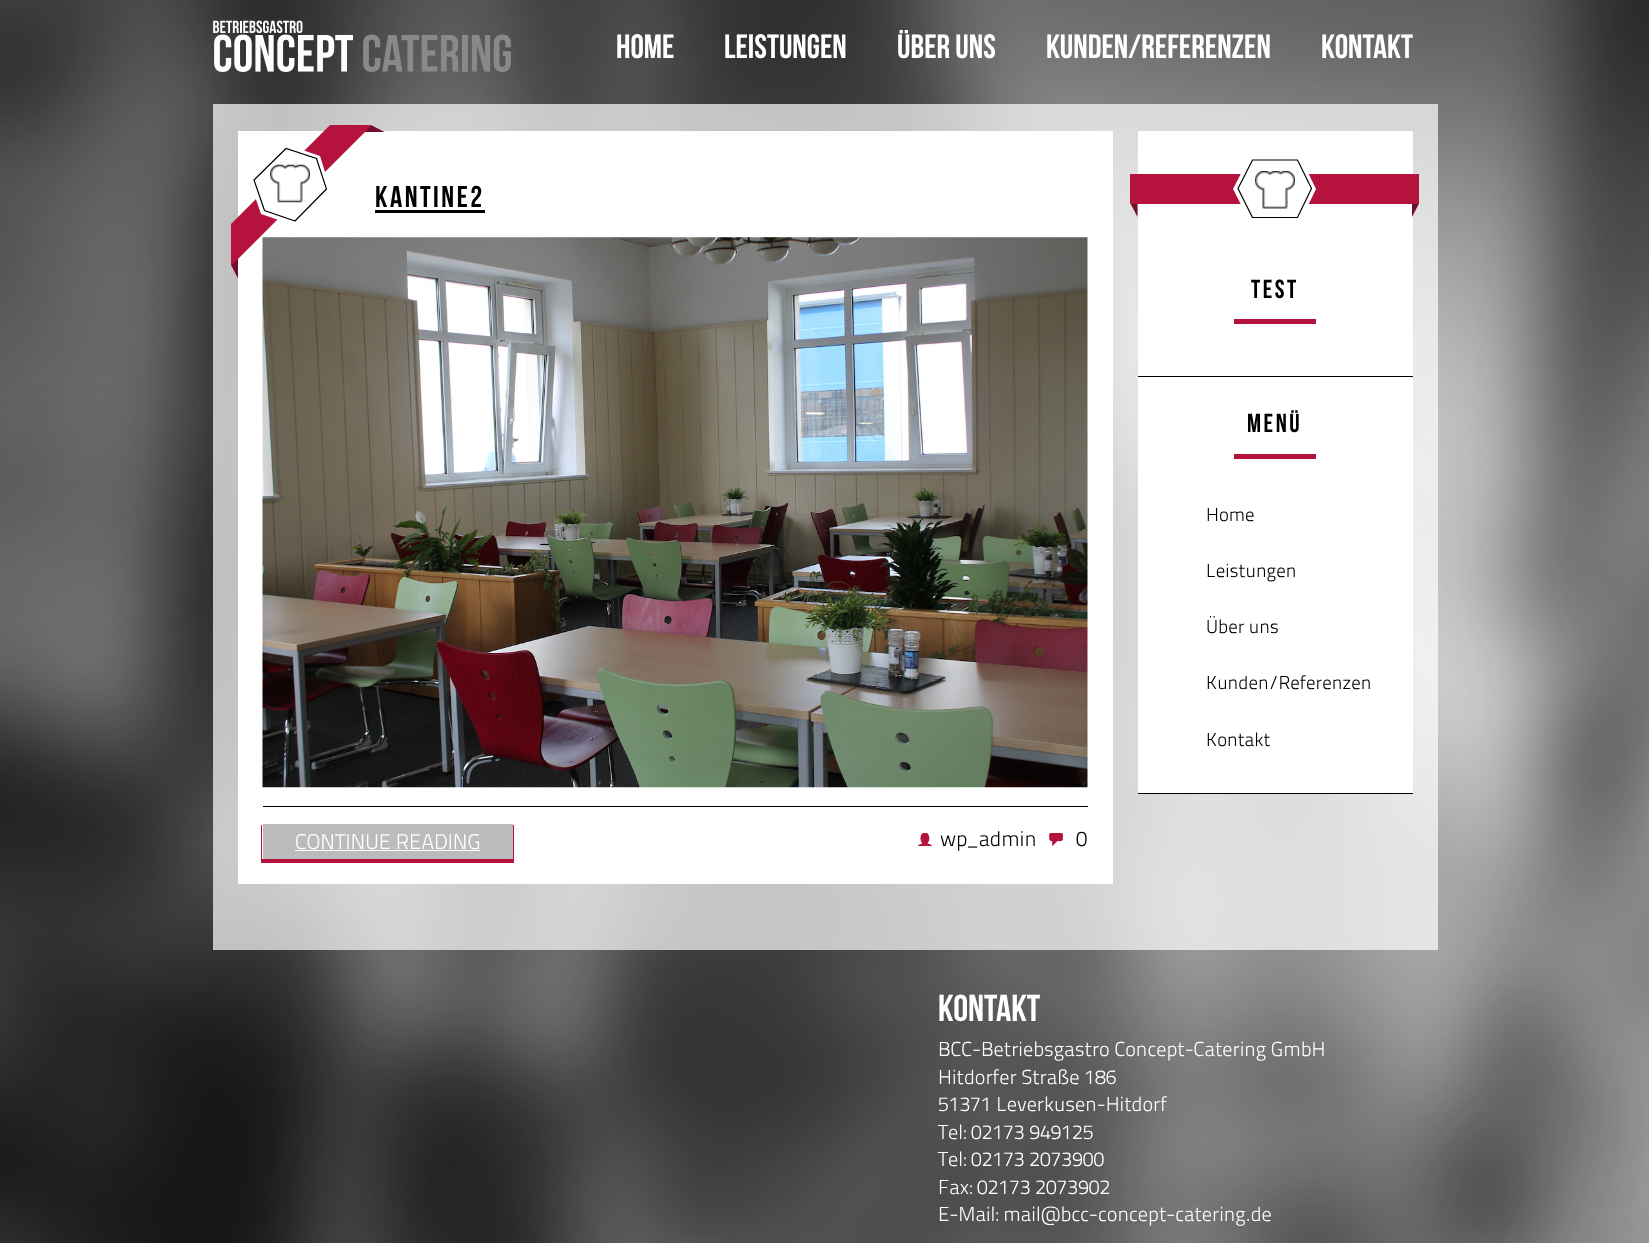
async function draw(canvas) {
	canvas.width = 1649;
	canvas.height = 1243;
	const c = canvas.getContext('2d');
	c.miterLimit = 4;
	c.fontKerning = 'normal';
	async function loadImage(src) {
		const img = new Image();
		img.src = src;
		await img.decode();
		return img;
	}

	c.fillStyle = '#fff';
	c.fillRect(0, 0, 1649, 1243);
	c.drawImage(await loadImage('img1.png'), 0, 0, 1649, 1243);
	c.drawImage(await loadImage('img2.png'), 213, 20, 298, 52);
	c.font = '33.75px Bebas Neue';
	for (const [text, x, y] of [
		['Home', 616, 58],
		['Leistungen', 724, 58],
		['Über uns', 897, 58],
		['Kunden/Referenzen', 1046, 58],
		['Kontakt', 1321, 58],
	]) {
		c.fillText(text, x, y);
	}
	c.fillStyle = '#ffffffb3';
	c.fillRect(213, 104, 1225, 846);
	c.fillStyle = '#fff';
	c.fillRect(238, 131, 875, 753);
	c.fillStyle = '#720d2c';
	c.beginPath();
	c.moveTo(371, 125);
	c.lineTo(384.5, 132);
	c.lineTo(359.5, 132);
	c.closePath();
	c.fill();
	c.beginPath();
	c.moveTo(231, 265);
	c.lineTo(238, 278.5);
	c.lineTo(238, 253.5);
	c.closePath();
	c.fill();
	c.drawImage(await loadImage('img4.png'), 262, 237, 826, 551);
	c.fillStyle = '#b5123e';
	c.beginPath();
	c.moveTo(231, 266);
	c.lineTo(372, 125);
	c.lineTo(330, 125);
	c.lineTo(231, 224);
	c.closePath();
	c.fill();
	c.fillStyle = '#fff';
	c.beginPath();
	c.moveTo(296, 226);
	c.lineTo(261, 214);
	c.lineTo(249, 179);
	c.lineTo(285, 144);
	c.lineTo(320, 156);
	c.lineTo(331, 191);
	c.closePath();
	c.fill();
	c.beginPath();
	c.moveTo(295, 221);
	c.lineTo(264.5, 210.5);
	c.lineTo(254, 180);
	c.lineTo(286, 148.5);
	c.lineTo(316.5, 158.5);
	c.lineTo(326.5, 189);
	c.closePath();
	c.strokeStyle = '#000';
	c.lineWidth = 1.2;
	c.stroke();
	c.drawImage(await loadImage('img3.png'), 270, 164, 40, 39);
	c.letterSpacing = '2.5px';
	c.font = '30px Bebas Neue';
	c.fillStyle = '#000';
	c.fillText('Kantine2', 375, 207);
	c.fillRect(375, 210, 110, 3);
	c.fillRect(263, 806, 825, 1);
	c.fillStyle = '#b5123e';
	c.beginPath();
	c.moveTo(261, 825);
	c.lineTo(261, 863);
	c.lineTo(514, 863);
	c.lineTo(514, 825);
	c.lineTo(512, 825);
	c.lineTo(512, 859);
	c.lineTo(262, 859);
	c.lineTo(262, 825);
	c.closePath();
	c.fill();
	c.fillStyle = '#bbb';
	c.fillRect(263, 824, 250, 35);
	c.letterSpacing = '0px';
	c.font = '300 21.25px "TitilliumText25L"';
	c.fillStyle = '#fff';
	c.fillText('CONTINUE READING', 295, 849);
	c.fillRect(295, 850, 185, 1);
	c.drawImage(await loadImage('img5.png'), 918, 833, 14, 13);
	c.fillStyle = '#000';
	c.fillText('wp_admin', 940, 846);
	c.drawImage(await loadImage('img6.png'), 1049, 833, 14, 13);
	c.fillText('0', 1076, 846);
	c.fillStyle = '#fff';
	c.fillRect(1138, 131, 275, 662);
	c.fillStyle = '#720d2c';
	c.beginPath();
	c.moveTo(1130.5, 203.5);
	c.lineTo(1137.5, 217);
	c.lineTo(1137.5, 192);
	c.closePath();
	c.fill();
	c.beginPath();
	c.moveTo(1419, 203.5);
	c.lineTo(1412, 217);
	c.lineTo(1412, 192);
	c.closePath();
	c.fill();
	c.fillStyle = '#b5123e';
	c.fillRect(1130, 174, 289, 30);
	c.fillStyle = '#fff';
	c.beginPath();
	c.moveTo(1250, 222);
	c.lineTo(1233, 189);
	c.lineTo(1250, 156);
	c.lineTo(1300, 156);
	c.lineTo(1316, 189);
	c.lineTo(1300, 222);
	c.closePath();
	c.fill();
	c.beginPath();
	c.moveTo(1252.5, 217.5);
	c.lineTo(1238, 188.5);
	c.lineTo(1252.5, 160);
	c.lineTo(1297.5, 160);
	c.lineTo(1311.5, 188.5);
	c.lineTo(1297.5, 217.5);
	c.closePath();
	c.stroke();
	c.drawImage(await loadImage('img7.png'), 1255, 171, 40, 38);
	c.fillStyle = '#000';
	c.fillRect(1138, 376, 275, 1);
	c.fillStyle = '#b5123e';
	c.fillRect(1234, 319, 82, 5);
	c.letterSpacing = '2.5px';
	c.font = '26px Bebas Neue';
	c.fillStyle = '#000';
	c.fillText('Test', 1251, 298);
	c.fillRect(1138, 793, 275, 1);
	c.fillStyle = '#b5123e';
	c.fillRect(1234, 454, 82, 5);
	c.fillStyle = '#000';
	c.fillText('Menü', 1247, 432);
	c.letterSpacing = '0px';
	c.font = '300 18.75px "TitilliumText25L"';
	for (const [text, x, y] of [
		['Home', 1206, 521],
		['Leistungen', 1206, 577],
		['Über uns', 1206, 633],
		['Kunden/Referenzen', 1206, 689],
		['Kontakt', 1206, 746],
	]) {
		c.fillText(text, x, y);
	}
	c.font = '37.5px Bebas Neue';
	c.fillStyle = '#fff';
	c.fillText('KONTAKT', 938, 1021);
	c.font = '300 20.2px "TitilliumText25L"';
	for (const [text, x, y] of [
		['BCC-Betriebsgastro Concept-Catering GmbH', 938, 1056],
		['Hitdorfer Straße 186', 938, 1084],
		['51371 Leverkusen-Hitdorf', 938, 1111],
		['Tel: 02173 949125', 938, 1139],
		['Tel: 02173 2073900', 938, 1166],
		['Fax: 02173 2073902', 938, 1194],
		['E-Mail: mail@bcc-concept-catering.de', 938, 1221],
	]) {
		c.fillText(text, x, y);
	}
}

draw(document.querySelector('canvas'));
